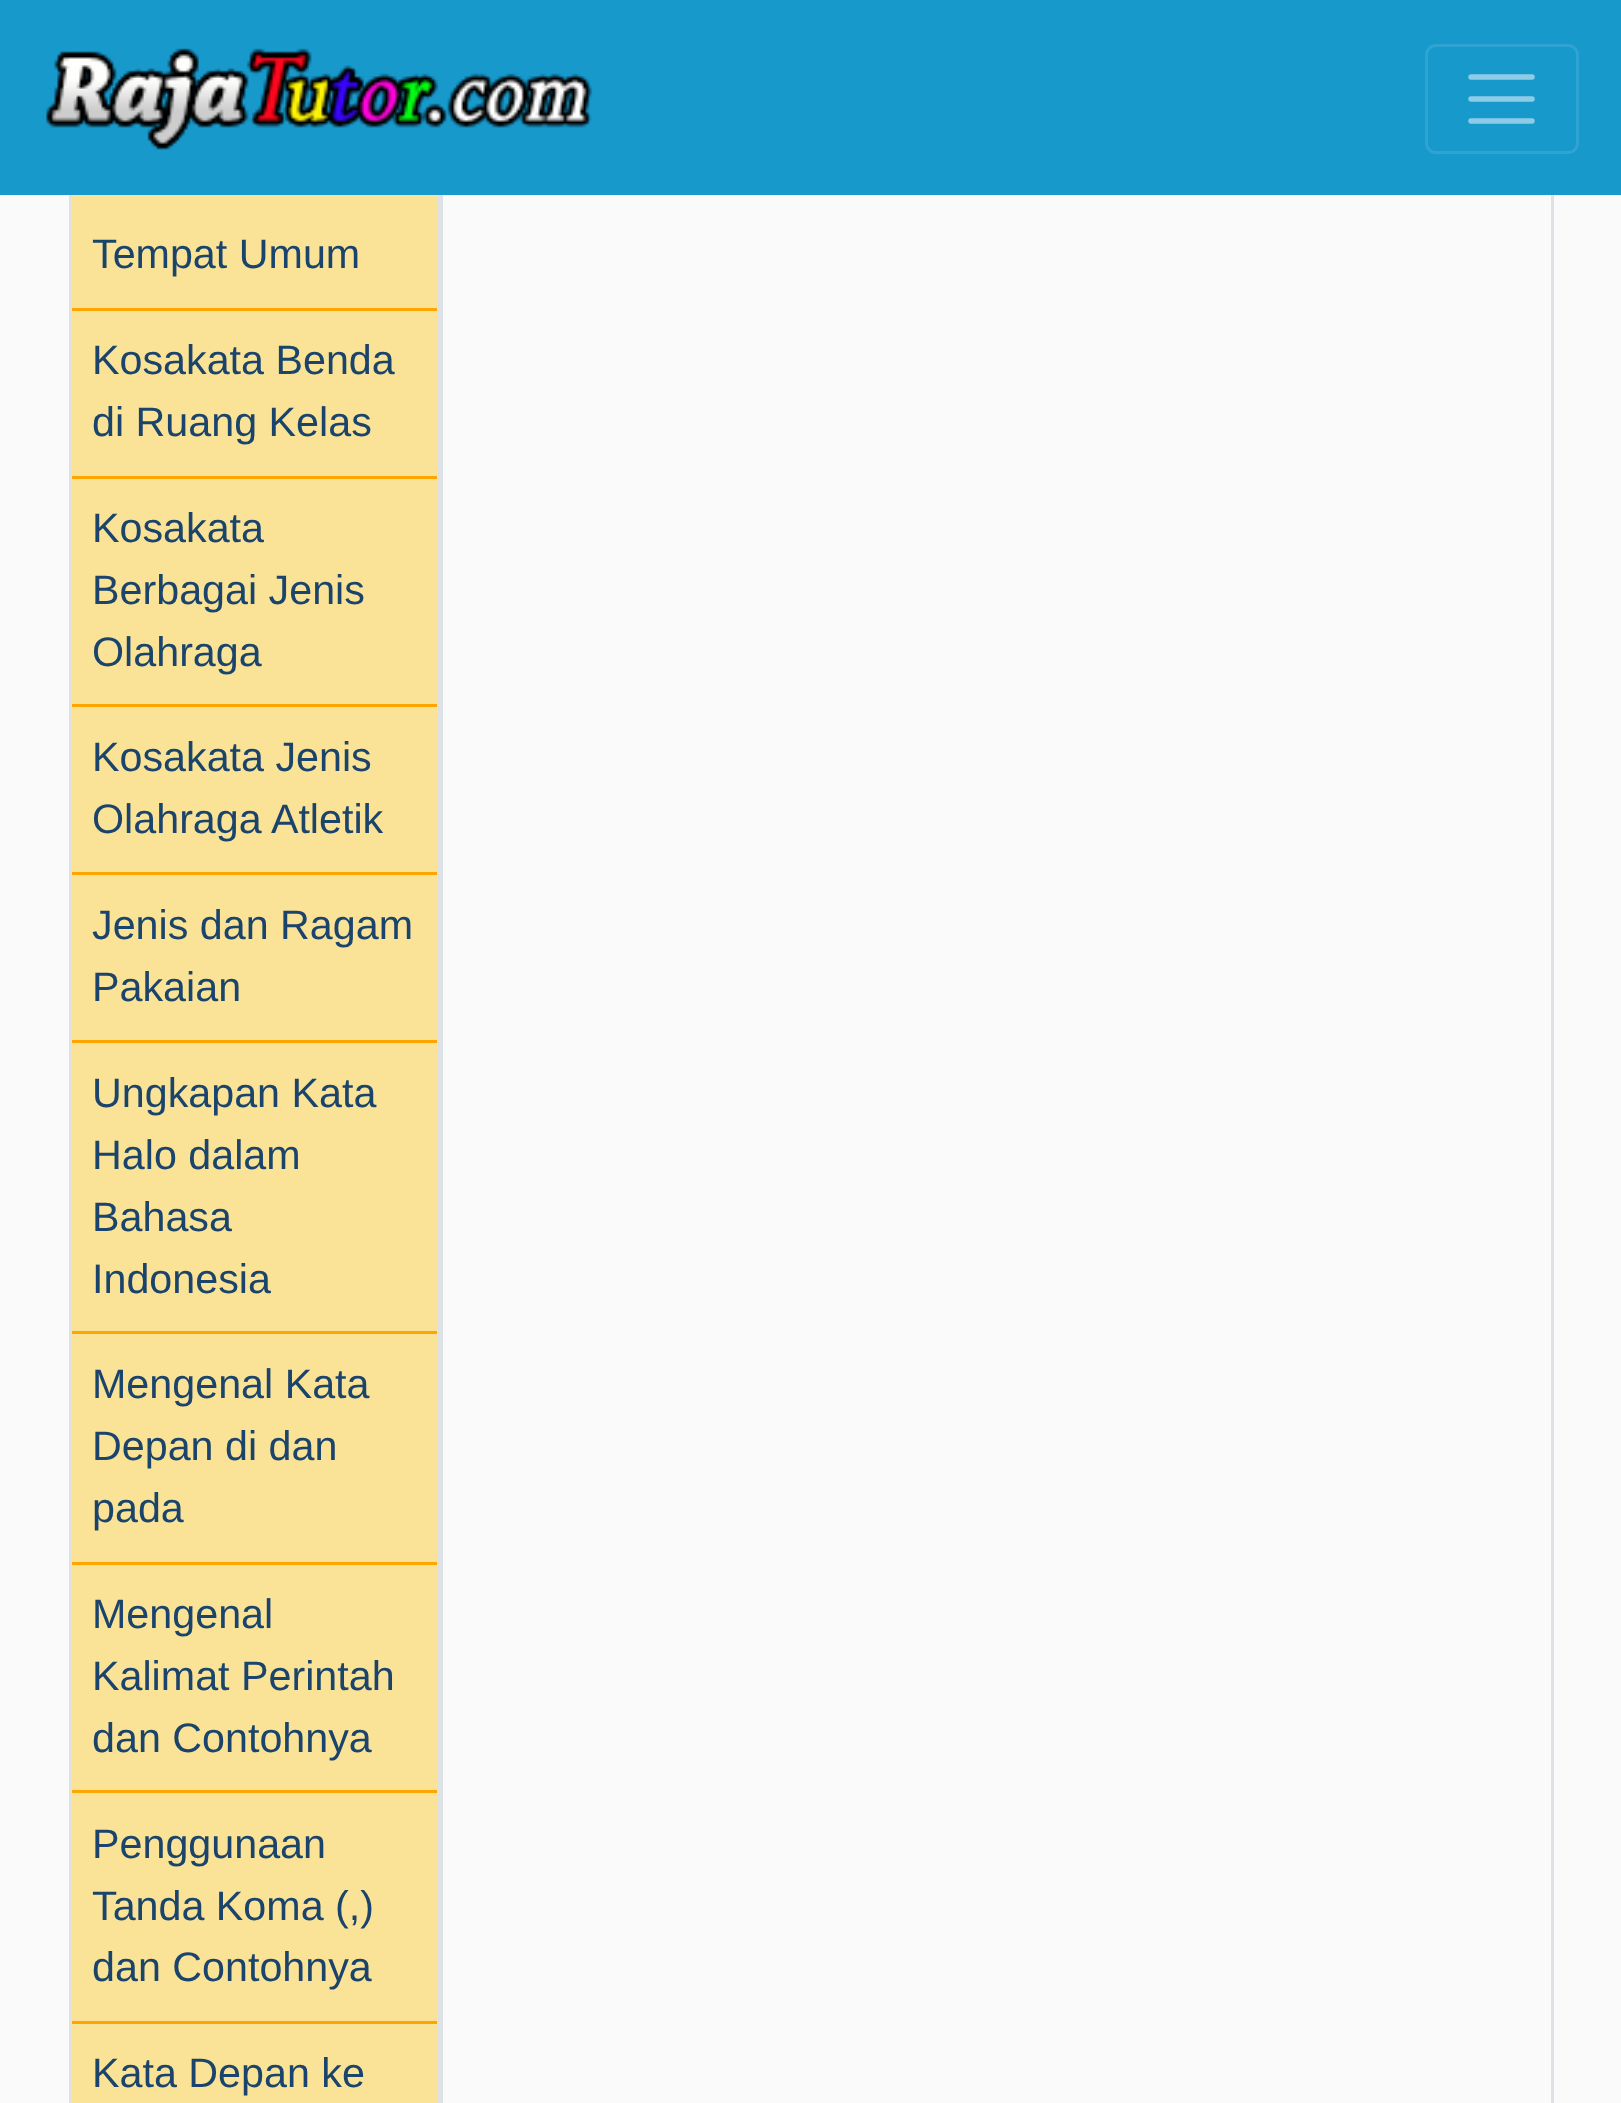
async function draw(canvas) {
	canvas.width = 1621;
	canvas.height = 2103;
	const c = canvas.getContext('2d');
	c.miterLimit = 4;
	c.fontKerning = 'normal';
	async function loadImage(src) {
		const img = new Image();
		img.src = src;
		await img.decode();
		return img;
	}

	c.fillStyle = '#fafafa';
	c.fillRect(0, 0, 1621, 2103);
	c.fillStyle = '#fae396';
	c.fillRect(72, 195, 365, 1908);
	c.strokeStyle = '#dee2e6';
	c.lineWidth = 3;
	c.strokeRect(70.5, -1.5, 368, 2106);
	c.strokeRect(441.5, -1.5, 1111, 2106);
	c.fillStyle = '#1899cc';
	c.fillRect(0, 0, 1621, 195);
	c.drawImage(await loadImage('img1.png'), 46, 48, 547, 102);
	c.beginPath();
	c.roundRect(1426.5, 45.5, 151, 107, 9.5);
	c.strokeStyle = '#2fa3d1';
	c.stroke();
	c.beginPath();
	c.moveTo(1471, 77);
	c.lineTo(1532, 77);
	c.moveTo(1471, 99);
	c.lineTo(1532, 99);
	c.moveTo(1471, 121);
	c.lineTo(1532, 121);
	c.strokeStyle = '#8ccce6';
	c.lineWidth = 5.5;
	c.lineCap = 'round';
	c.stroke();
	c.fillStyle = '#ffa500';
	c.fillRect(72, 308, 365, 3);
	c.font = '41.25px Liberation Sans';
	c.fillStyle = '#1a446c';
	c.fillText('Tempat Umum', 92, 268);
	c.fillStyle = '#ffa500';
	c.fillRect(72, 476, 365, 3);
	c.fillStyle = '#1a446c';
	c.fillText('Kosakata Benda', 92, 374);
	c.fillText('di Ruang Kelas', 92, 436);
	c.fillStyle = '#ffa500';
	c.fillRect(72, 704, 365, 3);
	c.fillStyle = '#1a446c';
	for (const [text, x, y] of [
		['Kosakata', 92, 542],
		['Berbagai Jenis', 92, 604],
		['Olahraga', 92, 666],
	]) {
		c.fillText(text, x, y);
	}
	c.fillStyle = '#ffa500';
	c.fillRect(72, 872, 365, 3);
	c.fillStyle = '#1a446c';
	c.fillText('Kosakata Jenis', 92, 771);
	c.fillText('Olahraga Atletik', 92, 833);
	c.fillStyle = '#ffa500';
	c.fillRect(72, 1040, 365, 3);
	c.fillStyle = '#1a446c';
	c.fillText('Jenis dan Ragam', 92, 939);
	c.fillText('Pakaian', 92, 1001);
	c.fillStyle = '#ffa500';
	c.fillRect(72, 1331, 365, 3);
	c.fillStyle = '#1a446c';
	for (const [text, x, y] of [
		['Ungkapan Kata', 92, 1107],
		['Halo dalam', 92, 1169],
		['Bahasa', 92, 1231],
		['Indonesia', 92, 1293],
	]) {
		c.fillText(text, x, y);
	}
	c.fillStyle = '#ffa500';
	c.fillRect(72, 1562, 365, 3);
	c.fillStyle = '#1a446c';
	for (const [text, x, y] of [
		['Mengenal Kata', 92, 1398],
		['Depan di dan', 92, 1460],
		['pada', 92, 1522],
	]) {
		c.fillText(text, x, y);
	}
	c.fillStyle = '#ffa500';
	c.fillRect(72, 1790, 365, 3);
	c.fillStyle = '#1a446c';
	for (const [text, x, y] of [
		['Mengenal', 92, 1628],
		['Kalimat Perintah', 92, 1690],
		['dan Contohnya', 92, 1752],
	]) {
		c.fillText(text, x, y);
	}
	c.fillStyle = '#ffa500';
	c.fillRect(72, 2021, 365, 3);
	c.fillStyle = '#1a446c';
	for (const [text, x, y] of [
		['Penggunaan', 92, 1858],
		['Tanda Koma (,)', 92, 1920],
		['dan Contohnya', 92, 1981],
		['Kata Depan ke', 92, 2087],
	]) {
		c.fillText(text, x, y);
	}
}

draw(document.querySelector('canvas'));
